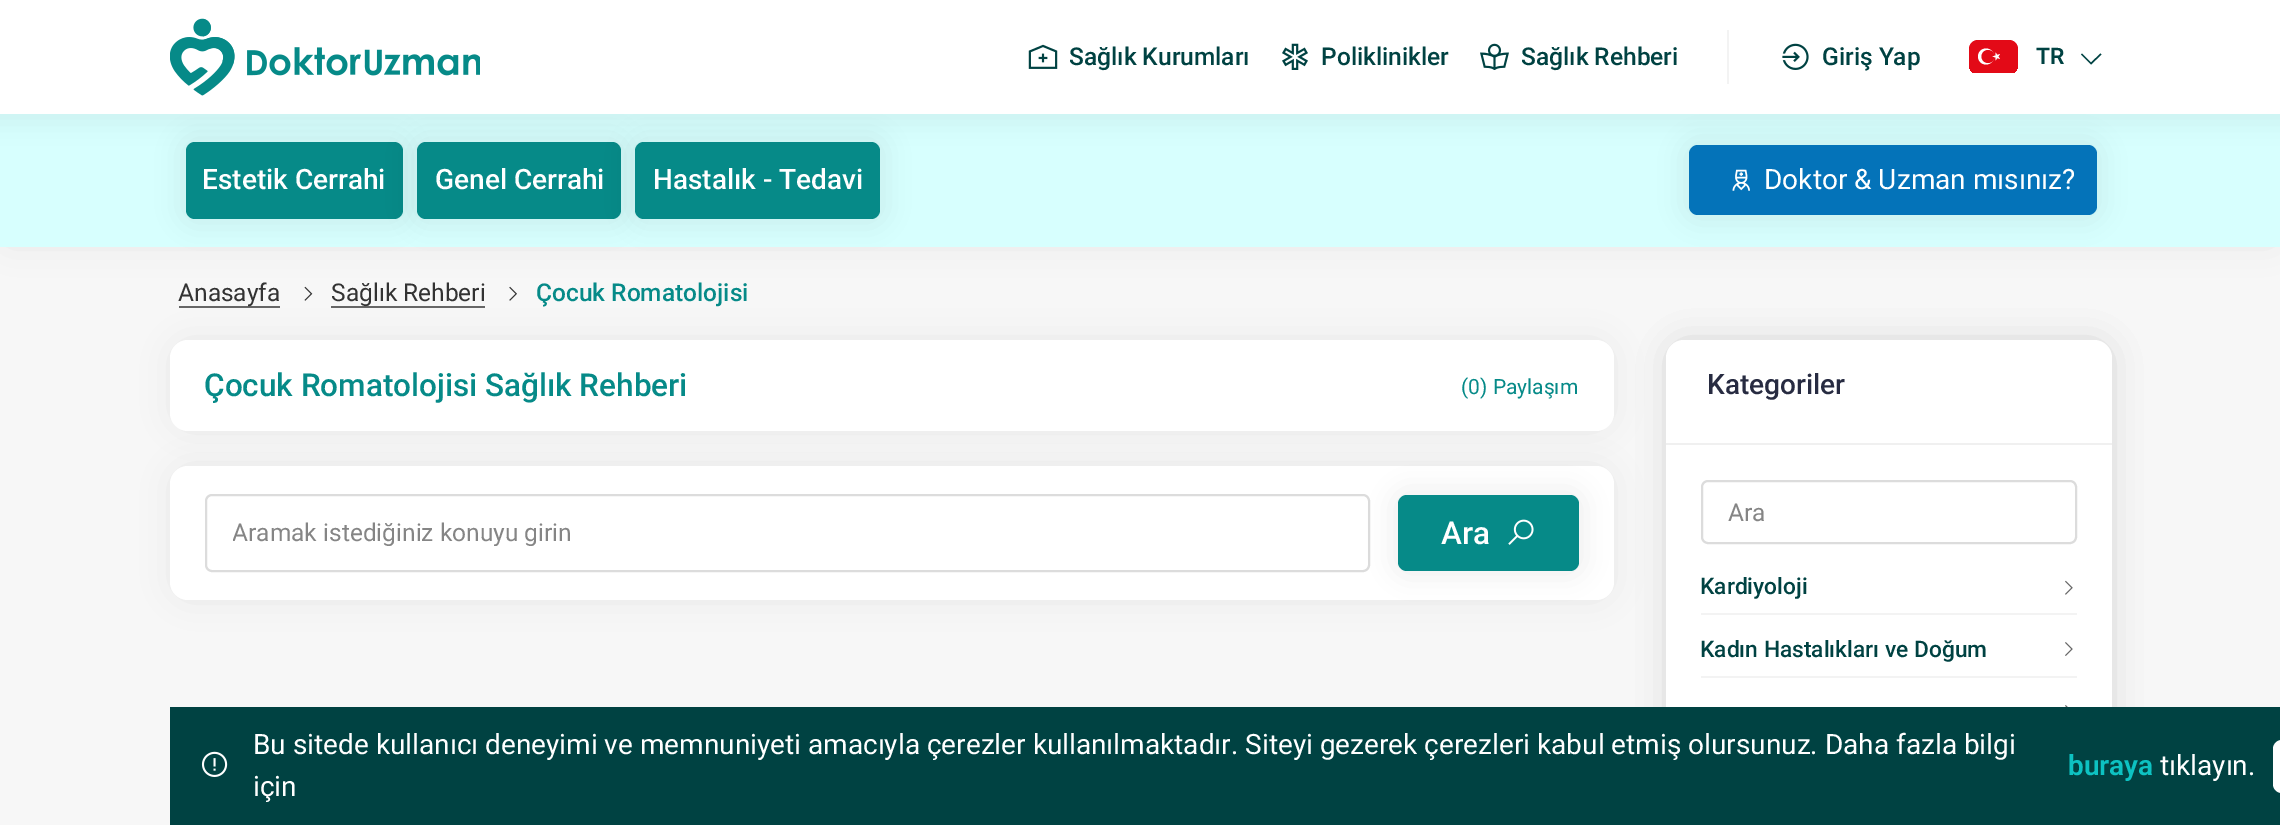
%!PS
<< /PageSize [2280 825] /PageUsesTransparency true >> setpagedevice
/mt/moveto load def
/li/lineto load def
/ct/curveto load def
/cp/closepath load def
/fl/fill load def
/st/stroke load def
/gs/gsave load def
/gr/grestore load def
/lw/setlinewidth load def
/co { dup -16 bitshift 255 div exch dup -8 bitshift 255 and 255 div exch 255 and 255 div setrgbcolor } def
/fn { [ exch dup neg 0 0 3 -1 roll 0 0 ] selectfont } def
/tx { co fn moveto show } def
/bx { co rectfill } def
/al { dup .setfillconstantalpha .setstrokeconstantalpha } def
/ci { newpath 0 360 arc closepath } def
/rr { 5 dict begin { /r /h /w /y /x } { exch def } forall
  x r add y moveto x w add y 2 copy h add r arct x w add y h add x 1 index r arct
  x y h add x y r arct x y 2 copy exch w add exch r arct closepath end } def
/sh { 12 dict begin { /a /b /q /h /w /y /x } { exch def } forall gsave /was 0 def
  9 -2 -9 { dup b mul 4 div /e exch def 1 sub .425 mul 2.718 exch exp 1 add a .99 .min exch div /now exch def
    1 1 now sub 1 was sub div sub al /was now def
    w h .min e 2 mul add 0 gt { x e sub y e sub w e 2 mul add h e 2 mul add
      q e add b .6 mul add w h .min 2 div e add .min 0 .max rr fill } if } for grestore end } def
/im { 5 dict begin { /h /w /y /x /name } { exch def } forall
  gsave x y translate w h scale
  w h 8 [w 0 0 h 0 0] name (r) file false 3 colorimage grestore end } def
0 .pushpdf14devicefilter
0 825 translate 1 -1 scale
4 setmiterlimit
0 0 2280 825 16#F7F7F7 bx
16#000000 co
9 123 2263 115 0 17.5 .1 sh
0 114 2280 133 16#D7FFFE bx
16#000000 co
177 133 234 95 18 13 .05 sh
16#068A88 co
186 142 217 77 9 rr fl
16#000000 co
408 133 222 95 18 13 .05 sh
16#068A88 co
417 142 204 77 9 rr fl
16#000000 co
627 133 262 95 18 13 .05 sh
16#068A88 co
635 142 245 77 9 rr fl
16#000000 co
1680 137 425 87 18 13 .05 sh
16#0473B9 co
1689 145 408 70 9 rr fl
16#000000 co
-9 -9 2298 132 0 13 .05 sh
0 0 2280 114 16#FFFFFF bx
(media/1.raw) 170 18 310 78 im
(media/2.raw) 1028 44 30 25 im
(media/3.raw) 1282 43 26 27 im
(media/4.raw) 1480 43 29 27 im
1727 30 2 54 16#F3F3F3 bx
(media/5.raw) 1782 43 27 27 im
gs
1969 40 49 34 9 rr clip newpath
16#E30A17 co
1978 40 mt 2009 40 li 2014 40 2018 44 2018 49 ct 2018 73 li 1969 73 li 1969 49 li 1969 44 1973 40 1978 40 ct cp fl
gr
16#FFFFFF co
1986 56.5 8 ci fl
16#E30A17 co
1988 56.5 6.5 ci fl
16#FFFFFF co
1992.5 56.5 mt 2000 59 li 1995.5 52.5 li 1995.5 60.5 li 2000 54 li cp fl
16#004242 co
2082 53.5 mt 2081 54.5 li 2091 64.5 li 2101.5 54.5 li 2100.5 53.5 li 2091 62.5 li cp fl
(media/6.raw) 1732 169 18 22 im
179 306 101 2 16#666666 bx
(media/7.raw) 304 286 9 15 im
331 306 154 2 16#666666 bx
(media/8.raw) 509 286 8 15 im
16#000000 co
179 348 1426 74 9 17.5 .1 sh
16#FFFFFF co
170 340 1444 91 18 rr fl
16#000000 co
179 474 1426 118 9 17.5 .1 sh
16#FFFFFF co
170 466 1444 134 18 rr fl
16#DCDCDC co
2 lw
206 495 1163 76 6 rr st
16#000000 co
1390 487 197 92 18 13 .05 sh
16#068A88 co
1398 495 181 76 9 rr fl
(media/9.raw) 1508 519 26 26 im
16#000000 co
1675 348 429 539 9 17.5 .1 sh
1675 348 429 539 9 17.5 .1 sh
16#FFFFFF co
1666 340 446 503 18 rr fl
1666 443 446 2 16#F0F0F0 bx
16#DCDCDC co
1702 481 374 62 6 rr st
1701 613 376 2 16#F3F3F3 bx
(media/10.raw) 2065 580 8 15 im
1701 676 376 2 16#F3F3F3 bx
(media/11.raw) 2065 642 8 14 im
(media/12.raw) 2065 705 3 2 im
170 707 2110 118 16#004242 bx
(media/13.raw) 201 751 27 26 im
16#FFFFFF co
2273 740 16 53 9 rr fl
(Sağlık Kurumları) 1069 65 /Roboto-Medium 24.5 16#004242 tx
(Poliklinikler) 1321 65 /Roboto-Medium 24.5 16#004242 tx
(Sağlık Rehberi) 1521 65 /Roboto-Medium 24.5 16#004242 tx
(Giriş Yap) 1822 65 /Roboto-Medium 24.5 16#004242 tx
(TR) 2036 64 /Roboto-SemiBold 22.75 16#004242 tx
(Estetik Cerrahi) 202 189 /Roboto-Medium 28 16#FFFFFF tx
(Genel Cerrahi) 435 189 /Roboto-Medium 28 16#FFFFFF tx
(Hastalık - Tedavi) 653 189 /Roboto-Medium 28 16#FFFFFF tx
(Doktor & Uzman mısınız?) 1764 189 /Roboto-Regular 28 16#FFFFFF tx
(Anasayfa) 178 301 /Roboto-Regular 24.5 16#333333 tx
(Sağlık Rehberi) 331 301 /Roboto-Regular 24.5 16#333333 tx
(Çocuk Romatolojisi) 536 301 /Roboto-Medium 24.5 16#068A88 tx
(Çocuk Romatolojisi Sağlık Rehberi) 204 396 /Roboto-Medium 31.5 16#068A88 tx
(\(0\) Paylaşım) 1461 394 /Roboto-Regular 21 16#068A88 tx
gs
233 518 1109 28 rectclip
(Aramak istediğiniz konuyu girin) 232 541 /Roboto-Regular 24.5 16#858585 tx
gr
(Ara) 1441 544 /Roboto-Medium 31.5 16#FFFFFF tx
(Kategoriler) 1707 394 /Roboto-Medium 28 16#272B41 tx
(Ara) 1728 521 /Roboto-Regular 24.5 16#858585 tx
(Kardiyoloji) 1700 594 /Roboto-Medium 22.75 16#004242 tx
(Kadın Hastalıkları ve Doğum) 1700 657 /Roboto-Medium 22.75 16#004242 tx
(Bu sitede kullanıcı deneyimi ve memnuniyeti amacıyla çerezler kullanılmaktadır. Siteyi gezerek çerezleri kabul etmiş olursunuz. Daha fazla bilgi) 253 754 /Roboto-Regular 28 16#FFFFFF tx
(buraya) 2068 775 /Roboto-SemiBold 28 16#0DC2C2 tx
(tıklayın.) 2160 775 /Roboto-Regular 28 16#FFFFFF tx
(için) 253 796 /Roboto-Regular 28 16#FFFFFF tx
.poppdf14devicefilter showpage
